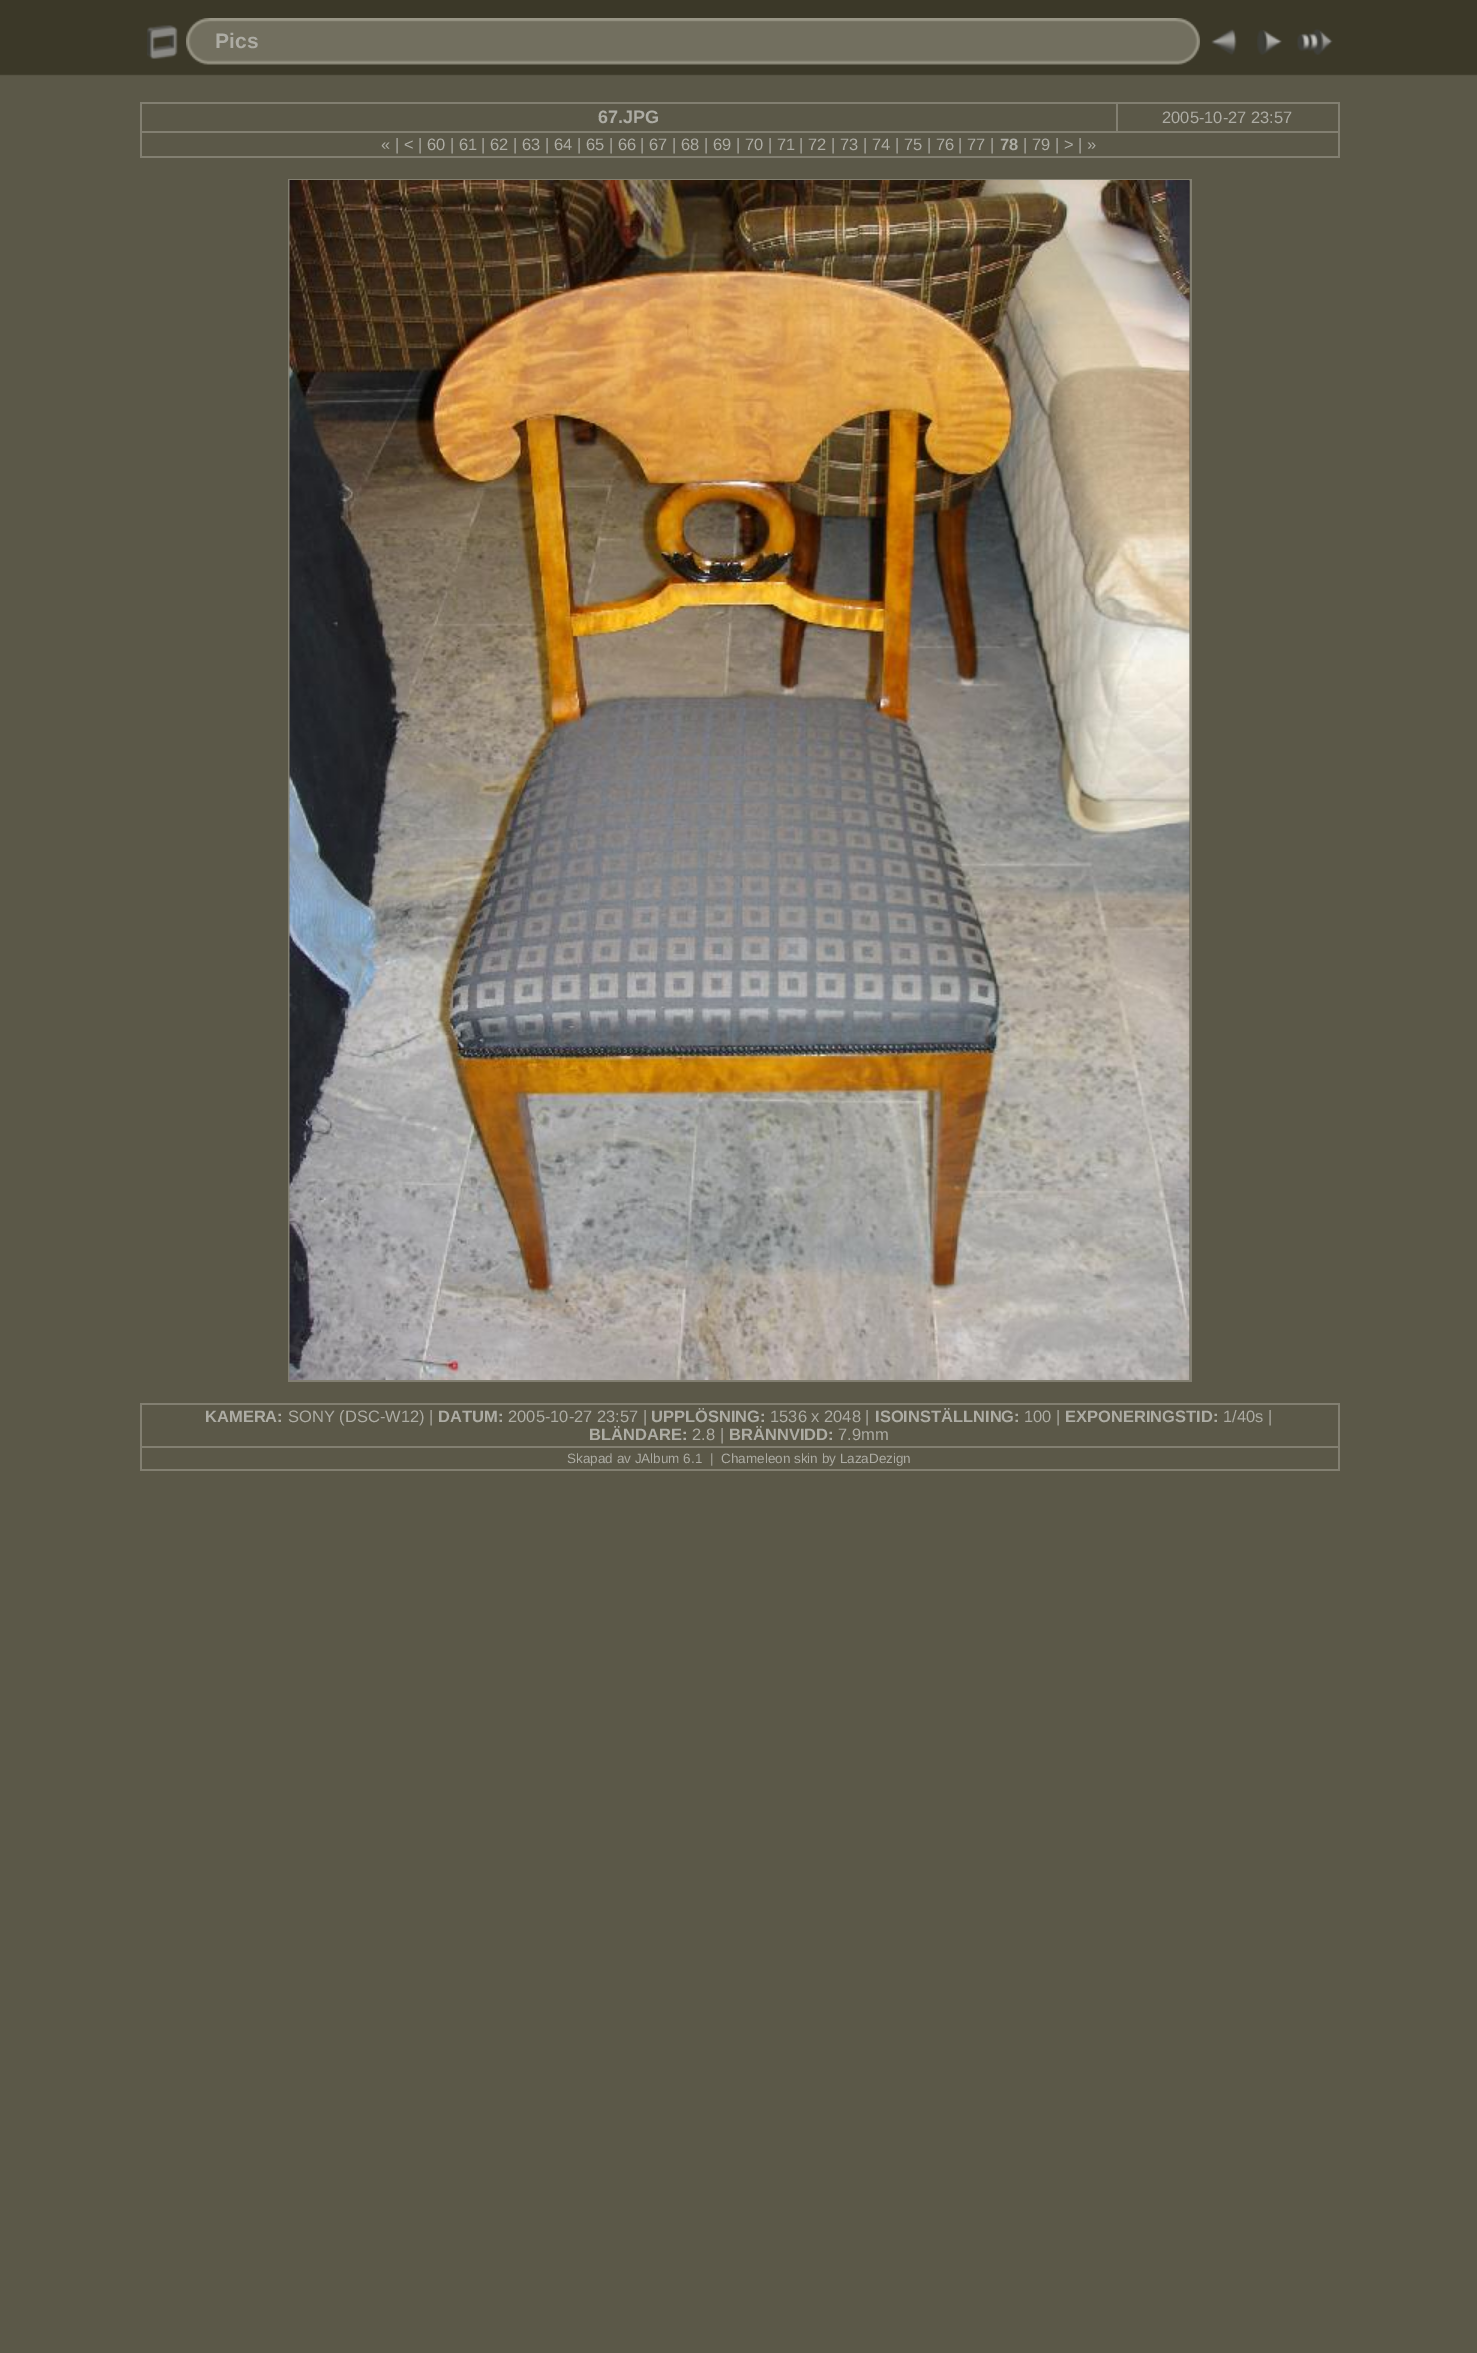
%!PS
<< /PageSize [1477 2353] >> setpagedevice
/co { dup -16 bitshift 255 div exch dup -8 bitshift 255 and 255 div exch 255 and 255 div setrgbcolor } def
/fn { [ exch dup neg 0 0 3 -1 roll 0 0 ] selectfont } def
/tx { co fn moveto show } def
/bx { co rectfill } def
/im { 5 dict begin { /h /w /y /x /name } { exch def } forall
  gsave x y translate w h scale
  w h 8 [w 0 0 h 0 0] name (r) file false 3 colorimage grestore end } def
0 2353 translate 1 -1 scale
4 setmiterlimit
0 0 1477 2353 16#5B5848 bx
(media/1.raw) 0 0 1477 76 im
(media/2.raw) 147 25 31 34 im
(media/3.raw) 186 18 30 47 im
(media/4.raw) 216 18 954 47 im
(media/5.raw) 1170 18 30 47 im
(media/6.raw) 1211 29 26 26 im
(media/7.raw) 1257 30 25 25 im
(media/8.raw) 1297 29 36 26 im
140 102 1200 2 16#827F71 bx
1338 102 2 56 16#827F71 bx
140 156 1200 2 16#827F71 bx
140 102 2 56 16#827F71 bx
140 131 1200 2 16#827F71 bx
1116 102 2 30 16#827F71 bx
288 179 903 2 16#827F71 bx
1190 179 2 1203 16#827F71 bx
288 1380 903 2 16#827F71 bx
288 179 2 1203 16#827F71 bx
(media/9.raw) 289 180 901 1200 im
140 1403 1200 2 16#827F71 bx
1338 1403 2 67 16#827F71 bx
140 1469 1200 2 16#827F71 bx
140 1403 2 67 16#827F71 bx
140 1446 1200 2 16#827F71 bx
(Pics) 215 48 /LiberationSans-Bold 21 16#ADACA4 tx
(67.JPG) 598 123 /LiberationSans-Bold 18 16#ADACA4 tx
(2005-10-27 23:57) 1162 123 /LiberationSans-Regular 16.5 16#ADACA4 tx
(« | < | 60 | 61 | 62 | 63 | 64 | 65 | 66 | 67 | 68 | 69 | 70 | 71 | 72 | 73 | 74 | 75 | 76 | 77 |) 381 150 /LiberationSans-Regular 16.5 16#ADACA4 tx
(78) 1000 150 /LiberationSans-Bold 16.5 16#ADACA4 tx
(| 79 | > | ») 1023 150 /LiberationSans-Regular 16.5 16#ADACA4 tx
(KAMERA:) 205 1422 /LiberationSans-Bold 16.5 16#ADACA4 tx
(SONY \(DSC-W12\) |) 288 1422 /LiberationSans-Regular 16.5 16#ADACA4 tx
(DATUM:) 438 1422 /LiberationSans-Bold 16.5 16#ADACA4 tx
(2005-10-27 23:57 |) 508 1422 /LiberationSans-Regular 16.5 16#ADACA4 tx
(UPPLÖSNING:) 651 1422 /LiberationSans-Bold 16.5 16#ADACA4 tx
(1536 x 2048 |) 770 1422 /LiberationSans-Regular 16.5 16#ADACA4 tx
(ISOINSTÄLLNING:) 875 1422 /LiberationSans-Bold 16.5 16#ADACA4 tx
(100 |) 1024 1422 /LiberationSans-Regular 16.5 16#ADACA4 tx
(EXPONERINGSTID:) 1065 1422 /LiberationSans-Bold 16.5 16#ADACA4 tx
(1/40s |) 1223 1422 /LiberationSans-Regular 16.5 16#ADACA4 tx
(BLÄNDARE:) 589 1440 /LiberationSans-Bold 16.5 16#ADACA4 tx
(2.8 |) 692 1440 /LiberationSans-Regular 16.5 16#ADACA4 tx
(BRÄNNVIDD:) 729 1440 /LiberationSans-Bold 16.5 16#ADACA4 tx
(7.9mm) 838 1440 /LiberationSans-Regular 16.5 16#ADACA4 tx
(Skapad av JAlbum 6.1) 567 1463 /LiberationSans-Regular 13.5 16#ADACA4 tx
(|  Chameleon skin by LazaDezign) 710 1463 /LiberationSans-Regular 13.5 16#ADACA4 tx
showpage
